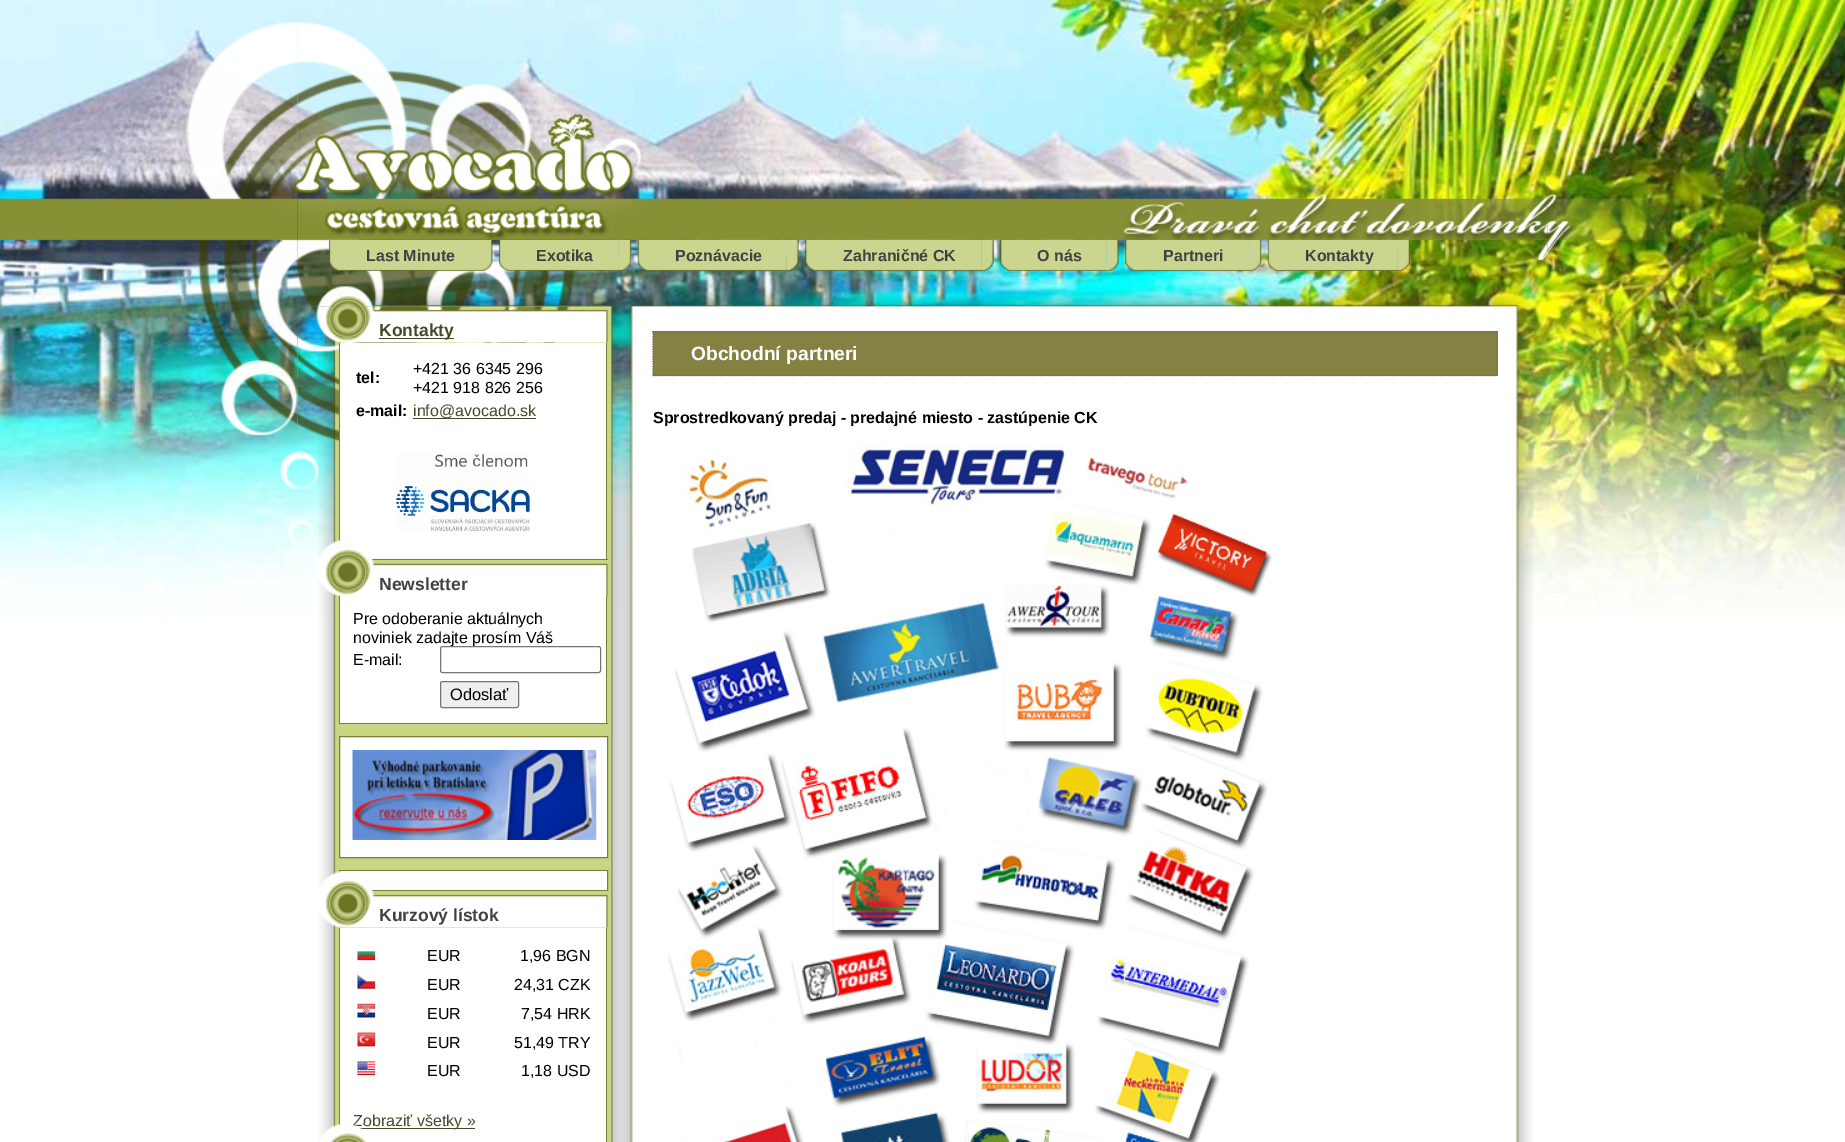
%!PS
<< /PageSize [1845 1142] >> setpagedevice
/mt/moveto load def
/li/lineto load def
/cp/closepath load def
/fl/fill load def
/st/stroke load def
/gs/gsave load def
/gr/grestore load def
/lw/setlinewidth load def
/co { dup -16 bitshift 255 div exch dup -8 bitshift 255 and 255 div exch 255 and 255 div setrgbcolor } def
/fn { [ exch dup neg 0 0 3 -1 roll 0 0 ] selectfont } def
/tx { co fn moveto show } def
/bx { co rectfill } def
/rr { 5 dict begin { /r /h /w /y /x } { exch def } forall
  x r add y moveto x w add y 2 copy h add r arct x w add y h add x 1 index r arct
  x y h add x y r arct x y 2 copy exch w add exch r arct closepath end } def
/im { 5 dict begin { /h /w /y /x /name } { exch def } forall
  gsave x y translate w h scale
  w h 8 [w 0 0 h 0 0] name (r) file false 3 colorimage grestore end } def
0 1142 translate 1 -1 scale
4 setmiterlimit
0 0 1845 1142 16#FFFFFF bx
(media/1.raw) 0 0 1845 620 im
(media/19.raw) 319 306 1214 836 im
(media/20.raw) 297 306 273 238 im
(media/21.raw) 316 306 292 37 im
(media/2.raw) 297 21 1251 286 im
(media/3.raw) 0 21 298 523 im
(media/4.raw) 480 240 13 32 im
(media/5.raw) 328 240 152 32 im
(media/6.raw) 618 240 14 32 im
(media/7.raw) 498 240 121 32 im
(media/8.raw) 786 240 13 32 im
(media/9.raw) 637 240 150 32 im
(media/10.raw) 981 240 13 32 im
(media/11.raw) 805 240 177 32 im
(media/12.raw) 1106 240 13 32 im
(media/13.raw) 1000 240 107 32 im
(media/14.raw) 1248 240 14 32 im
(media/15.raw) 1125 240 124 32 im
(media/16.raw) 1397 240 13 32 im
(media/17.raw) 1267 240 131 32 im
(media/18.raw) 1547 193 157 70 im
379 338 75 1 16#424B28 bx
340 343 266 216 16#FFFFFF bx
606 343 1 217 16#797D38 bx
371 559 237 1 16#797D38 bx
339 343 1 204 16#797D38 bx
413 418 123 1 16#424B28 bx
(media/22.raw) 396 453 134 78 im
(media/23.raw) 317 540 291 57 im
340 596 266 127 16#FFFFFF bx
606 596 1 128 16#797D38 bx
339 723 269 1 16#797D38 bx
339 596 1 128 16#797D38 bx
16#EFEFEF co
440.5 681.5 78 26 2 rr gs fl gr
16#767676 co
st
16#FFFFFF co
339.5 736.5 mt 607.5 736.5 li 607.5 857.5 li 339.5 857.5 li cp gs fl gr
16#797D38 co
st
(media/24.raw) 352 750 245 90 im
16#FFFFFF co
339.5 870.5 mt 607.5 870.5 li 607.5 890.5 li 339.5 890.5 li cp gs fl gr
16#797D38 co
st
(media/25.raw) 318 871 290 57 im
340 928 266 214 16#FFFFFF bx
606 928 1 214 16#797D38 bx
339 928 1 203 16#797D38 bx
(media/26.raw) 357 951 19 10 im
(media/27.raw) 357 974 19 15 im
(media/28.raw) 357 1003 19 15 im
(media/29.raw) 357 1032 19 15 im
(media/30.raw) 357 1061 19 15 im
353 1128 122 1 16#424B28 bx
653 331 845 45 16#858142 bx
16#746F41 co
1.2 lw
[1.25 1.25] 0 setdash
652.5 332 mt 1497.5 332 li st
1497 331 mt 1497 376 li st
652.5 375.5 mt 1497.5 375.5 li st
653 331 mt 653 376 li st
(Last Minute) 366 261 /LiberationSans-Bold 16 16#414141 tx
(Exotika) 536 261 /LiberationSans-Bold 16 16#414141 tx
(Poznávacie) 675 261 /LiberationSans-Bold 16 16#414141 tx
(Zahraničné CK) 843 261 /LiberationSans-Bold 16 16#414141 tx
(O nás) 1037 261 /LiberationSans-Bold 16 16#414141 tx
(Partneri) 1163 261 /LiberationSans-Bold 16 16#414141 tx
(Kontakty) 1305 261 /LiberationSans-Bold 16 16#414141 tx
(Kontakty) 379 336 /LiberationSans-Bold 17.5 16#424B28 tx
(tel:) 356 383 /LiberationSans-Bold 16 16#000000 tx
(+421 36 6345 296) 413 374 /LiberationSans-Regular 16 16#000000 tx
(+421 918 826 256) 413 393 /LiberationSans-Regular 16 16#000000 tx
(e-mail:) 356 416 /LiberationSans-Bold 16 16#000000 tx
(info@avocado.sk) 413 416 /LiberationSans-Regular 16 16#424B28 tx
(Newsletter) 379 590 /LiberationSans-Bold 17.5 16#414141 tx
(Pre odoberanie aktuálnych) 353 624 /LiberationSans-Regular 16 16#000000 tx
(noviniek zadajte prosím Váš) 353 643 /LiberationSans-Regular 16 16#000000 tx
(E-mail:) 353 665 /LiberationSans-Regular 16 16#000000 tx
16#FFFFFF co
440.5 646.5 160 26 2 rr gs fl gr
16#767676 co
1 lw
[] 0 setdash
st
(Odoslať) 450 700 /LiberationSans-Regular 16.5 16#000000 tx
(Kurzový lístok) 379 921 /LiberationSans-Bold 17.5 16#414141 tx
(EUR) 427 961 /LiberationSans-Regular 16 16#000000 tx
(1,96 BGN) 520 961 /LiberationSans-Regular 16 16#000000 tx
(EUR) 427 990 /LiberationSans-Regular 16 16#000000 tx
(24,31 CZK) 514 990 /LiberationSans-Regular 16 16#000000 tx
(EUR) 427 1019 /LiberationSans-Regular 16 16#000000 tx
(7,54 HRK) 521 1019 /LiberationSans-Regular 16 16#000000 tx
(EUR) 427 1048 /LiberationSans-Regular 16 16#000000 tx
(51,49 TRY) 514 1048 /LiberationSans-Regular 16 16#000000 tx
(EUR) 427 1076 /LiberationSans-Regular 16 16#000000 tx
(1,18 USD) 521 1076 /LiberationSans-Regular 16 16#000000 tx
(Zobraziť všetky ») 353 1126 /LiberationSans-Regular 16 16#424B28 tx
(media/31.raw) 319 1123 48 19 im
(Obchodní partneri) 691 360 /LiberationSans-Bold 19.25 16#FFFFFF tx
(Sprostredkovaný predaj - predajné miesto - zastúpenie CK) 653 423 /LiberationSans-Bold 16 16#000000 tx
(media/32.raw) 664 426 609 716 im
showpage
